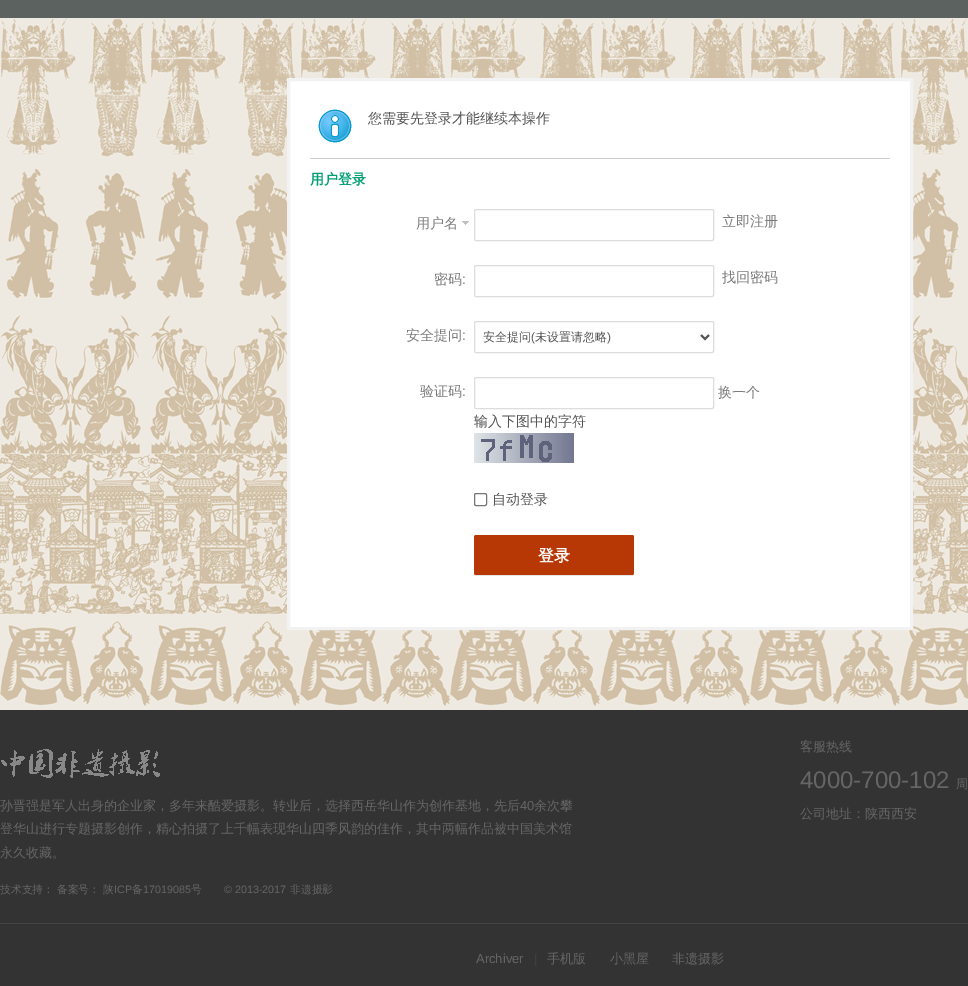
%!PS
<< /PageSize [968 986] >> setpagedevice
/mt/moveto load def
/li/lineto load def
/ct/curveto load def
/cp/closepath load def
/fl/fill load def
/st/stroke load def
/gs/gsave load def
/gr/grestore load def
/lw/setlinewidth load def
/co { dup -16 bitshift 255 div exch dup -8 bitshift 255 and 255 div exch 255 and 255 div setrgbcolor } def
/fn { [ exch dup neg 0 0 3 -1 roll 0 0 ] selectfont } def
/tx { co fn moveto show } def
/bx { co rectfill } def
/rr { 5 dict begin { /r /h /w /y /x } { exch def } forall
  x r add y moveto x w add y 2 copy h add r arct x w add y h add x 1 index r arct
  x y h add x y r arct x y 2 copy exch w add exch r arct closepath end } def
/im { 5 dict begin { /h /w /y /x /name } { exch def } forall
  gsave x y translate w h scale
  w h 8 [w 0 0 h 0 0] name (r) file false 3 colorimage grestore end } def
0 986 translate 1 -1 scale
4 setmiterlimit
0 0 968 986 16#FFFFFF bx
(media/1.raw) 0 18 968 692 im
0 0 968 18 16#5C6260 bx
16#FFFFFF co
288.5 79.5 mt 911.5 79.5 li 911.5 628.5 li 288.5 628.5 li cp gs fl gr
16#F2F2F2 co
3 lw
st
(media/2.raw) 318 109 34 34 im
310 158 580 1 16#CDCDCD bx
(media/3.raw) 462 221 7 4 im
16#DDDDDD co
1 lw
474.5 209.5 239 31 1.5 rr st
474.5 265.5 239 31 1.5 rr st
474.5 321.5 239 31 1.5 rr st
16#555555 co
2 lw
701 335 mt 705 339 li 709 335 li st
16#DDDDDD co
1 lw
474.5 377.5 239 31 1.5 rr st
(media/4.raw) 474 433 100 30 im
16#767676 co
474.5 493.5 12 12 1.5 rr st
16#E5E5E5 co
474 573 mt 474 574 474 576 476 576 ct 632 576 li 634 576 634 574 634 573 ct 634 574 633 575 632 575 ct 476 575 li 475 575 474 574 474 573 ct cp fl
16#B83805 co
474 535 160 40 2 rr fl
0 710 968 276 16#333333 bx
(media/5.raw) 1 749 159 29 im
0 923 968 1 16#444444 bx
(您需要先登录才能继续本操作) 368 123 /WenQuanYiZenHei-Medium 14 16#555555 tx
(用户登录) 310 184 /WenQuanYiZenHei-Bold 14 16#009E73 tx
(用户名) 416 228 /WenQuanYiZenHei-Medium 14 16#7B7B7B tx
(立即注册) 722 226 /WenQuanYiZenHei-Medium 14 16#7B7B7B tx
(密码) 434 284 /WenQuanYiZenHei-Medium 14 16#7B7B7B tx
(:) 462 284 /LiberationSans-Regular 14 16#7B7B7B tx
(找回密码) 722 282 /WenQuanYiZenHei-Medium 14 16#7B7B7B tx
(安全提问) 406 340 /WenQuanYiZenHei-Medium 14 16#7B7B7B tx
(:) 462 340 /LiberationSans-Regular 14 16#7B7B7B tx
(安全提问) 483 341 /WenQuanYiZenHei-Medium 12 16#555555 tx
(\() 531 341 /LiberationSans-Regular 12 16#555555 tx
(未设置请忽略) 535 341 /WenQuanYiZenHei-Medium 12 16#555555 tx
(\)) 607 341 /LiberationSans-Regular 12 16#555555 tx
(验证码) 420 396 /WenQuanYiZenHei-Medium 14 16#7B7B7B tx
(:) 462 396 /LiberationSans-Regular 14 16#7B7B7B tx
(换一个) 718 397 /WenQuanYiZenHei-Medium 14 16#7B7B7B tx
(输入下图中的字符) 474 426 /WenQuanYiZenHei-Medium 14 16#555555 tx
(自动登录) 492 504 /WenQuanYiZenHei-Medium 14 16#555555 tx
(登录) 538 561 /WenQuanYiZenHei-Bold 16 16#FFFFFF tx
(客服热线) 800 751 /WenQuanYiZenHei-Medium 13 16#666666 tx
(4000-700-102) 800 788 /LiberationSans-Regular 24 16#666666 tx
(周) 956 788 /WenQuanYiZenHei-Medium 12 16#666666 tx
(公司地址：陕西西安) 800 818 /WenQuanYiZenHei-Medium 13 16#666666 tx
(孙晋强是军人出身的企业家，多年来酷爱摄影。转业后，选择西岳华山作为创作基地，先后) 0 810 /WenQuanYiZenHei-Medium 13 16#666666 tx
(40) 520 810 /LiberationSans-Regular 13 16#666666 tx
(余次攀) 534 810 /WenQuanYiZenHei-Medium 13 16#666666 tx
(登华山进行专题摄影创作，精心拍摄了上千幅表现华山四季风韵的佳作，其中两幅作品被中国美术馆) 0 833 /WenQuanYiZenHei-Medium 13 16#666666 tx
(永久收藏。) 0 857 /WenQuanYiZenHei-Medium 13 16#666666 tx
(技术支持： 备案号： 陕) 0 893 /WenQuanYiZenHei-Medium 10.75 16#666666 tx
(ICP) 114 893 /LiberationSans-Regular 10.75 16#666666 tx
(备) 132 893 /WenQuanYiZenHei-Medium 10.75 16#666666 tx
(17019085) 143 893 /LiberationSans-Regular 10.75 16#666666 tx
(号) 191 893 /WenQuanYiZenHei-Medium 10.75 16#666666 tx
(© 2013-2017) 224 893 /LiberationSans-Regular 10.75 16#666666 tx
(非遗摄影) 290 893 /WenQuanYiZenHei-Medium 10.75 16#666666 tx
(Archiver) 476 963 /LiberationSans-Regular 13 16#666666 tx
(|) 534 963 /LiberationSans-Regular 13 16#444444 tx
(手机版) 547 963 /WenQuanYiZenHei-Medium 13 16#666666 tx
(小黑屋) 610 963 /WenQuanYiZenHei-Medium 13 16#666666 tx
(非遗摄影) 672 963 /WenQuanYiZenHei-Medium 13 16#666666 tx
showpage
